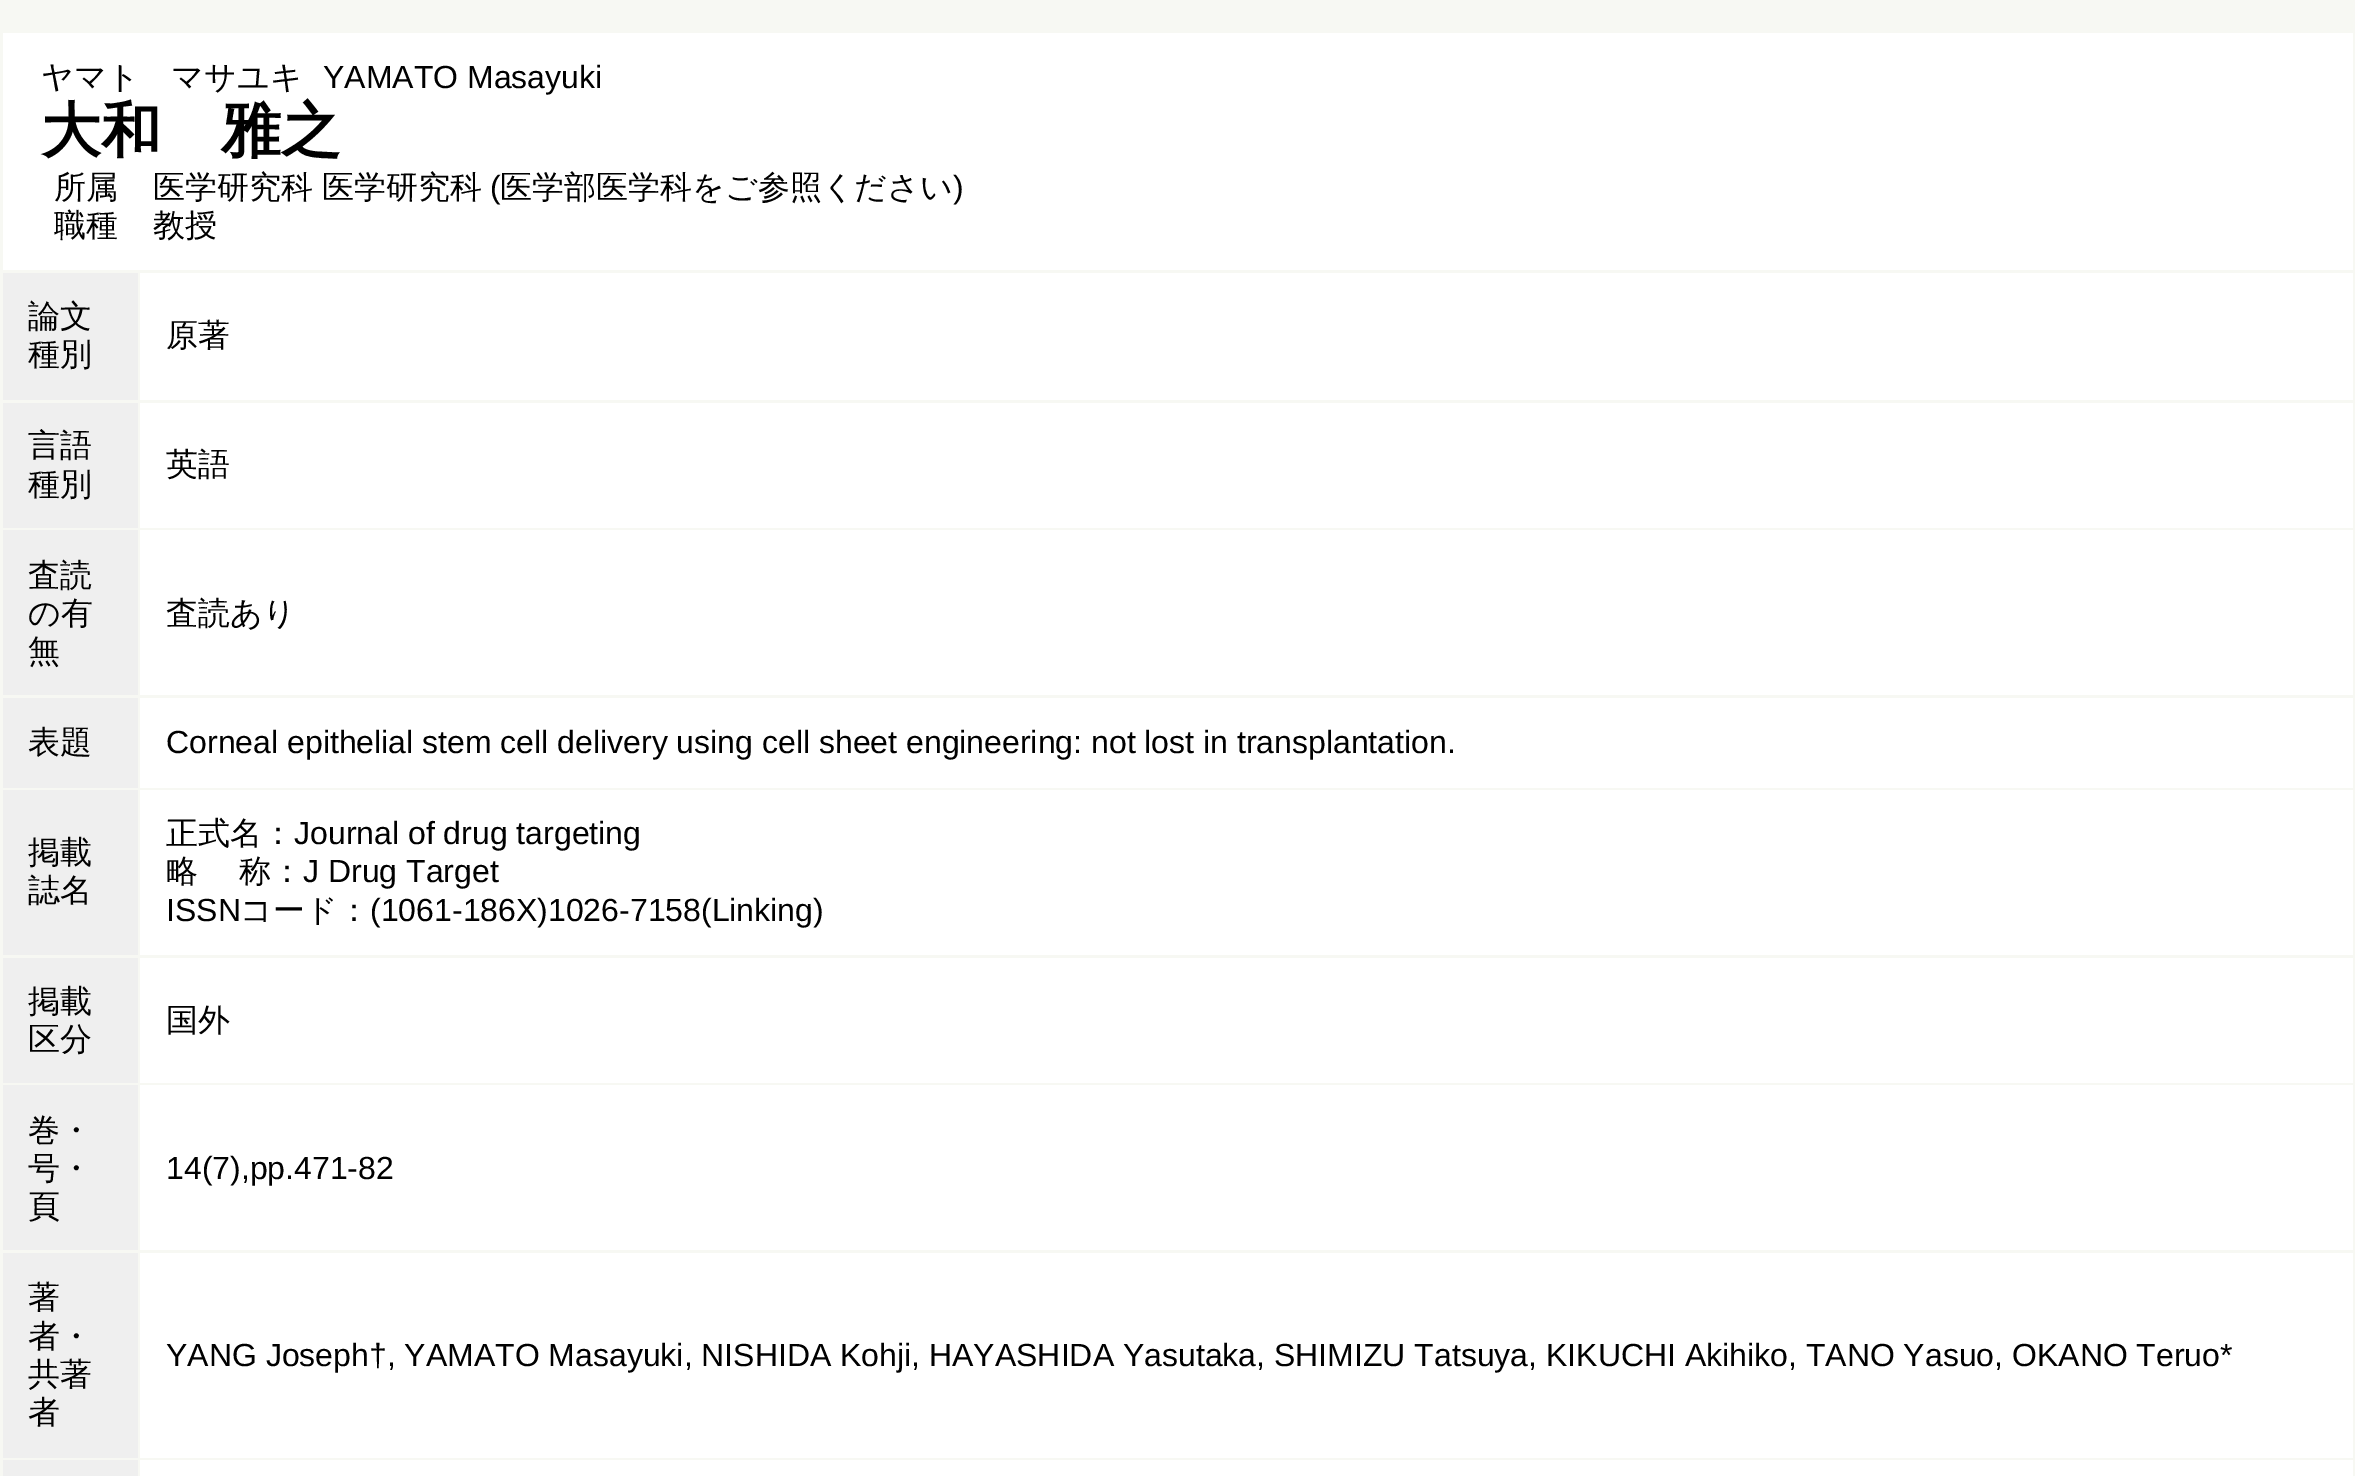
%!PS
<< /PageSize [2355 1476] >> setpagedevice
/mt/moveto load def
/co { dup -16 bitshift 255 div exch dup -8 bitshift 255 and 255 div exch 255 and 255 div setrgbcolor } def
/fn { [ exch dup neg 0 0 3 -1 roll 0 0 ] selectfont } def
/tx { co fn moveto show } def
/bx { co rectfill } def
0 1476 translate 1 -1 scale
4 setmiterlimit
0 0 2355 1476 16#F7F8F3 bx
3 33 2350 237 16#FFFFFF bx
3 273 135 127 16#EFEFEF bx
140 273 2213 127 16#FFFFFF bx
3 403 135 125 16#EFEFEF bx
140 403 2213 125 16#FFFFFF bx
3 530 135 165 16#EFEFEF bx
140 530 2213 165 16#FFFFFF bx
3 698 135 90 16#EFEFEF bx
140 698 2213 90 16#FFFFFF bx
3 790 135 165 16#EFEFEF bx
140 790 2213 165 16#FFFFFF bx
3 958 135 125 16#EFEFEF bx
140 958 2213 125 16#FFFFFF bx
3 1085 135 165 16#EFEFEF bx
140 1085 2213 165 16#FFFFFF bx
3 1253 135 205 16#EFEFEF bx
140 1253 2213 205 16#FFFFFF bx
3 1460 135 16 16#EFEFEF bx
140 1460 2213 16 16#FFFFFF bx
(ヤマト　マサユキ) 41 88 /WenQuanYiZenHei-Medium 32 16#000000 tx
(YAMATO Masayuki) 323 88 /LiberationSans-Regular 32 16#000000 tx
(大和　雅之) 41 151 /WenQuanYiZenHei-Bold 60 16#000000 tx
(所属) 54 198 /WenQuanYiZenHei-Medium 32 16#000000 tx
153 198 mt -1 0 32 (医学研究科 医学研究科) widthshow
(\() 490 198 /LiberationSans-Regular 32 16#000000 tx
(医学部医学科をご参照ください) 500 198 /WenQuanYiZenHei-Medium 32 16#000000 tx
(\)) 953 198 /LiberationSans-Regular 32 16#000000 tx
(職種) 54 236 /WenQuanYiZenHei-Medium 32 16#000000 tx
(教授) 153 236 /WenQuanYiZenHei-Medium 32 16#000000 tx
(論文) 28 327 /WenQuanYiZenHei-Medium 32 16#000000 tx
(種別) 28 365 /WenQuanYiZenHei-Medium 32 16#000000 tx
(原著) 166 346 /WenQuanYiZenHei-Medium 32 16#000000 tx
(言語) 28 456 /WenQuanYiZenHei-Medium 32 16#000000 tx
(種別) 28 495 /WenQuanYiZenHei-Medium 32 16#000000 tx
(英語) 166 475 /WenQuanYiZenHei-Medium 32 16#000000 tx
(査読) 28 586 /WenQuanYiZenHei-Medium 32 16#000000 tx
(の有) 28 624 /WenQuanYiZenHei-Medium 32 16#000000 tx
(無) 28 662 /WenQuanYiZenHei-Medium 32 16#000000 tx
(査読あり) 166 624 /WenQuanYiZenHei-Medium 32 16#000000 tx
(表題) 28 753 /WenQuanYiZenHei-Medium 32 16#000000 tx
(Corneal epithelial stem cell delivery using cell sheet engineering: not lost in transplantation.) 166 753 /LiberationSans-Regular 32 16#000000 tx
(掲載) 28 863 /WenQuanYiZenHei-Medium 32 16#000000 tx
(誌名) 28 901 /WenQuanYiZenHei-Medium 32 16#000000 tx
(正式名：) 166 844 /WenQuanYiZenHei-Medium 32 16#000000 tx
(Journal of drug targeting) 294 844 /LiberationSans-Regular 32 16#000000 tx
(略) 166 882 /WenQuanYiZenHei-Medium 32 16#000000 tx
(称：) 239 882 /WenQuanYiZenHei-Medium 32 16#000000 tx
(J Drug Target) 303 882 /LiberationSans-Regular 32 16#000000 tx
(ISSN) 166 921 /LiberationSans-Regular 32 16#000000 tx
(コード：) 240 921 /WenQuanYiZenHei-Medium 32 16#000000 tx
(\(1061-186X\)1026-7158\(Linking\)) 370 921 /LiberationSans-Regular 32 16#000000 tx
(掲載) 28 1012 /WenQuanYiZenHei-Medium 32 16#000000 tx
(区分) 28 1050 /WenQuanYiZenHei-Medium 32 16#000000 tx
(国外) 166 1031 /WenQuanYiZenHei-Medium 32 16#000000 tx
(巻・) 28 1141 /WenQuanYiZenHei-Medium 32 16#000000 tx
(号・) 28 1179 /WenQuanYiZenHei-Medium 32 16#000000 tx
(頁) 28 1217 /WenQuanYiZenHei-Medium 32 16#000000 tx
(14\(7\),pp.471-82) 166 1179 /LiberationSans-Regular 32 16#000000 tx
(著) 28 1308 /WenQuanYiZenHei-Medium 32 16#000000 tx
(者・) 28 1347 /WenQuanYiZenHei-Medium 32 16#000000 tx
(共著) 28 1385 /WenQuanYiZenHei-Medium 32 16#000000 tx
(者) 28 1423 /WenQuanYiZenHei-Medium 32 16#000000 tx
(YANG Joseph†, YAMATO Masayuki, NISHIDA Kohji, HAYASHIDA Yasutaka, SHIMIZU Tatsuya, KIKUCHI Akihiko, TANO Yasuo, OKANO Teruo*) 166 1366 /LiberationSans-Regular 32 16#000000 tx
showpage
